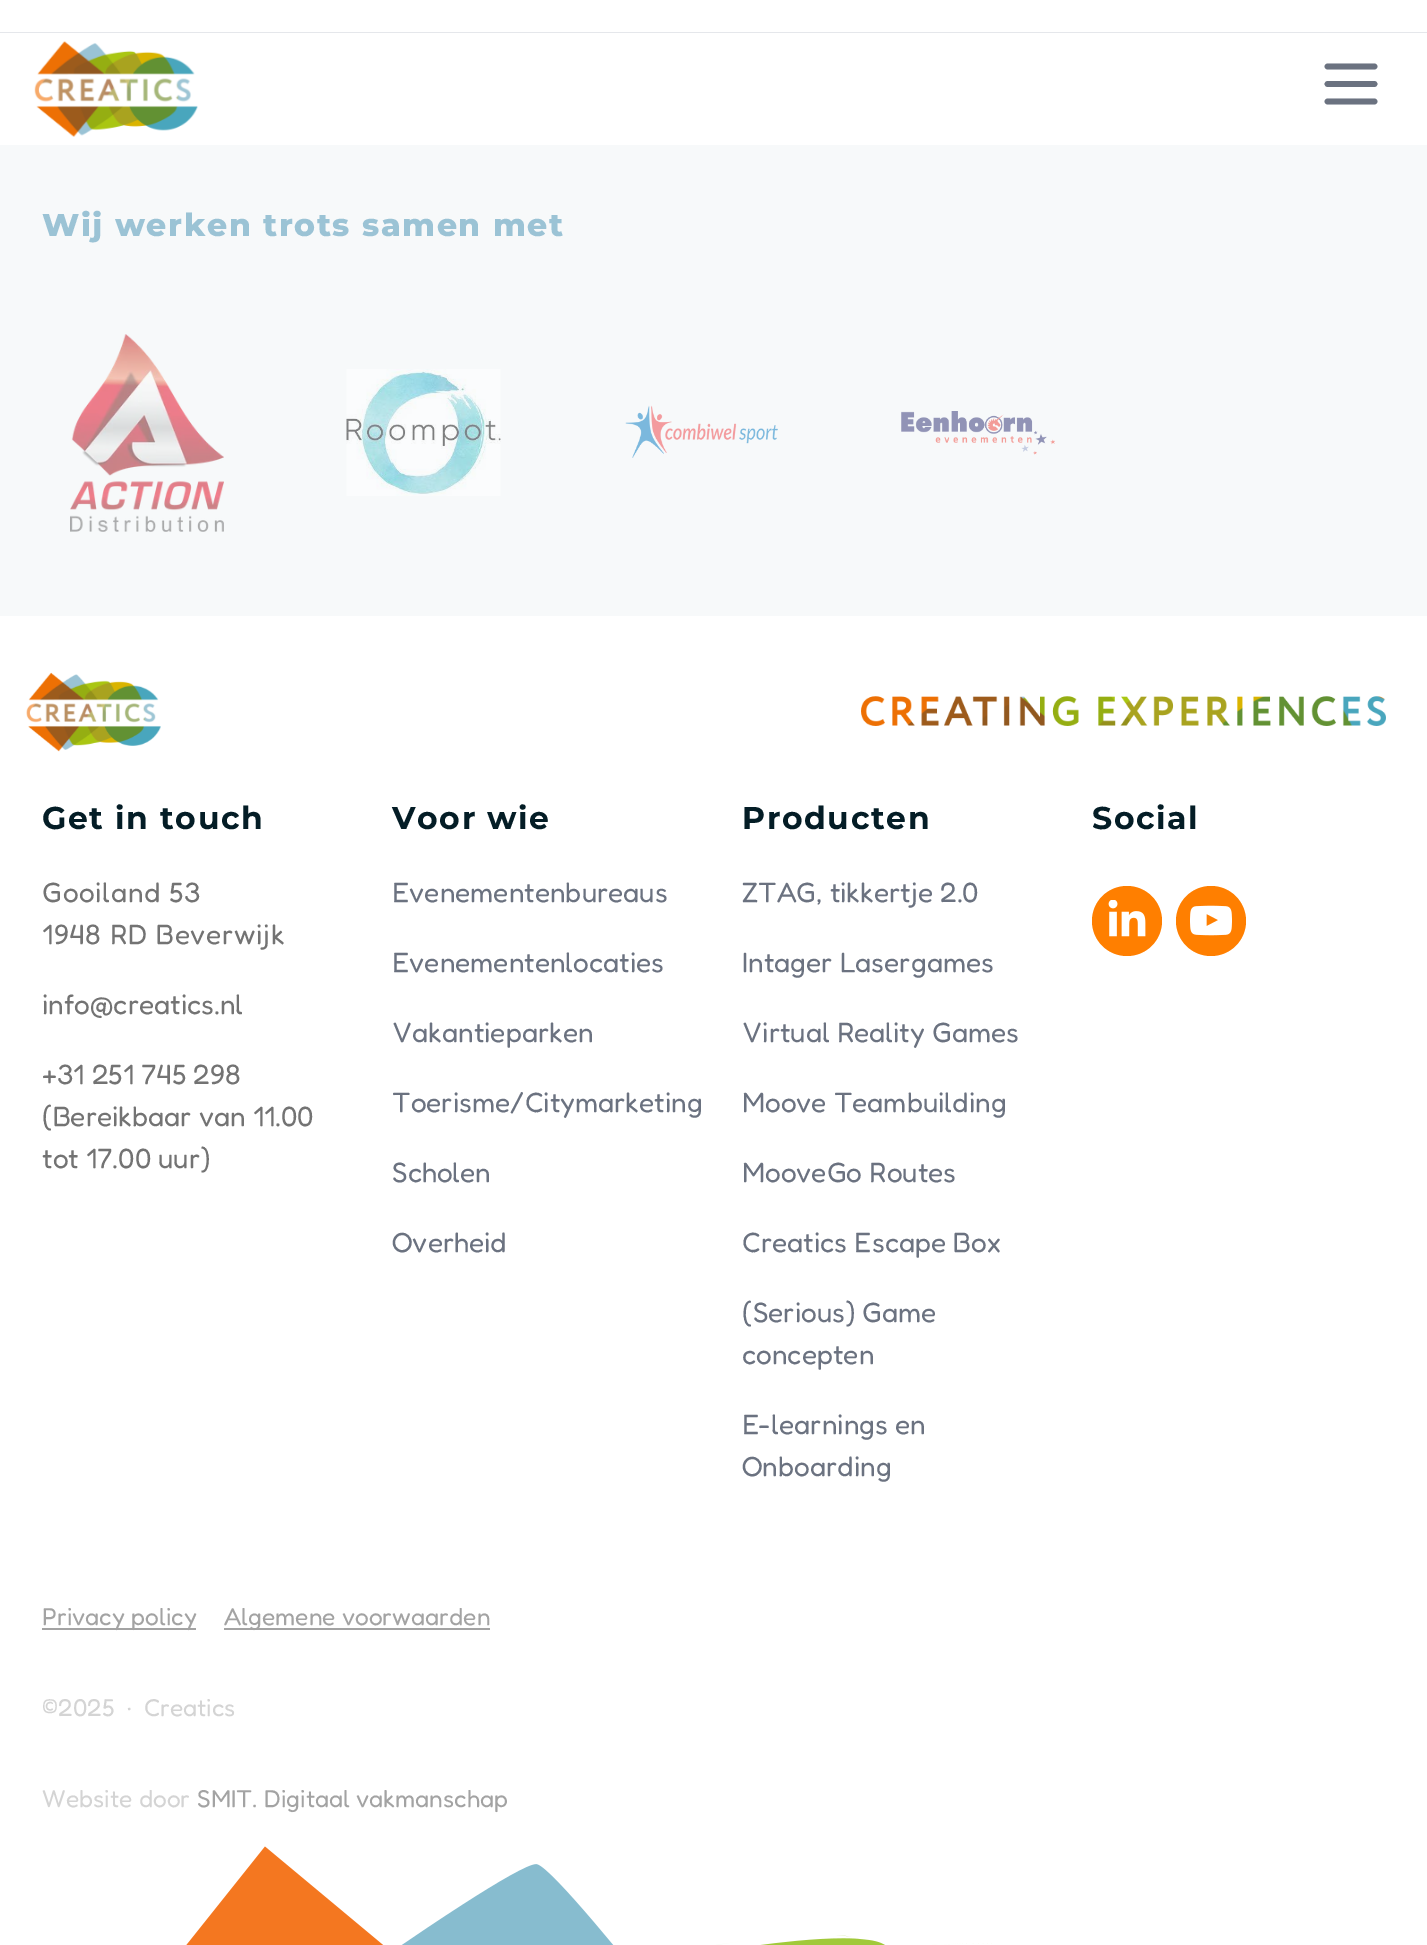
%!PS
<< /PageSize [1427 1945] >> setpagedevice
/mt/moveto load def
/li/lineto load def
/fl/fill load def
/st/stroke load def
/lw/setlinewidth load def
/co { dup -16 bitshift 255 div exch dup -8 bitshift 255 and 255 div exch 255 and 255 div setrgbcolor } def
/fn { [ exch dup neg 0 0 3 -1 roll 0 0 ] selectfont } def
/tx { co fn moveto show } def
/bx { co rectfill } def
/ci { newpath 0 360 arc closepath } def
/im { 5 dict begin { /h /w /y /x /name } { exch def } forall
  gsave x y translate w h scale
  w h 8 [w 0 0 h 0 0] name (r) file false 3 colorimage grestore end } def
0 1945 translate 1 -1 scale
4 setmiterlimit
0 0 1427 1945 16#FFFFFF bx
0 32 1427 1 16#E5E7EB bx
(media/1.raw) 34 41 164 96 im
16#6B7280 co
5.8 lw
1 setlinecap
1 setlinejoin
1327.5 66.5 mt 1374.5 66.5 li 1327.5 84 mt 1374.5 84 li 1327.5 101.5 mt 1374.5 101.5 li st
0 145 1427 471 16#F7F9FA bx
(media/2.raw) 70 334 154 198 im
(media/3.raw) 346 369 155 127 im
(media/4.raw) 625 405 153 53 im
(media/5.raw) 901 411 154 44 im
(media/6.raw) 26 672 135 80 im
(media/7.raw) 861 696 525 30 im
16#FF7F00 co
1127 921 35 ci fl
(media/8.raw) 1108 900 38 37 im
1211 921 35 ci fl
(media/9.raw) 1190 905 42 31 im
42 1628 154 2 16#A3A3A3 bx
224 1628 266 2 16#A3A3A3 bx
(media/10.raw) 186 1846 806 99 im
/Montserrat-ExtraBold 31.5 fn
16#9BC3D5 co
42 236 mt 1.6 0 (Wij werken trots samen met) ashow
/Montserrat-Bold 31.5 fn
16#041D26 co
42 829 mt 1.6 0 (Get in touch) ashow
/Fredoka-Light 28 fn
16#737373 co
42 902 mt .75 0 (Gooiland 53) ashow
42 944 mt .75 0 (1948 RD Beverwijk) ashow
(info@creatics.nl) 42 1014 /Fredoka-Light 28 16#737373 tx
(+31 251 745 298) 42 1084 /Fredoka-Light 28 16#737373 tx
(\(Bereikbaar van 11.00) 42 1126 /Fredoka-Light 28 16#737373 tx
(tot 17.00 uur\)) 42 1168 /Fredoka-Light 28 16#737373 tx
/Montserrat-Bold 31.5 fn
16#041D26 co
392 829 mt 1.6 0 (Voor wie) ashow
(Evenementenbureaus) 392 902 /Fredoka-Light 28 16#6B7280 tx
(Evenementenlocaties) 392 972 /Fredoka-Light 28 16#6B7280 tx
(Vakantieparken) 392 1042 /Fredoka-Light 28 16#6B7280 tx
(Toerisme/Citymarketing) 392 1112 /Fredoka-Light 28 16#6B7280 tx
(Scholen) 392 1182 /Fredoka-Light 28 16#6B7280 tx
(Overheid) 392 1252 /Fredoka-Light 28 16#6B7280 tx
/Montserrat-Bold 31.5 fn
16#041D26 co
742 829 mt 1.6 0 (Producten) ashow
(ZTAG, tikkertje 2.0) 742 902 /Fredoka-Light 28 16#6B7280 tx
(Intager Lasergames) 742 972 /Fredoka-Light 28 16#6B7280 tx
(Virtual Reality Games) 742 1042 /Fredoka-Light 28 16#6B7280 tx
(Moove Teambuilding) 742 1112 /Fredoka-Light 28 16#6B7280 tx
(MooveGo Routes) 742 1182 /Fredoka-Light 28 16#6B7280 tx
(Creatics Escape Box) 742 1252 /Fredoka-Light 28 16#6B7280 tx
(\(Serious\) Game) 742 1322 /Fredoka-Light 28 16#6B7280 tx
(concepten) 742 1364 /Fredoka-Light 28 16#6B7280 tx
(E-learnings en) 742 1434 /Fredoka-Light 28 16#6B7280 tx
(Onboarding) 742 1476 /Fredoka-Light 28 16#6B7280 tx
/Montserrat-Bold 31.5 fn
16#041D26 co
1092 829 mt 1.6 0 (Social) ashow
(Privacy policy) 42 1625 /Fredoka-Light 24.5 16#A3A3A3 tx
(Algemene voorwaarden) 224 1625 /Fredoka-Light 24.5 16#A3A3A3 tx
(©2025  ·  Creatics) 42 1716 /Fredoka-Light 24.5 16#D4D4D4 tx
(Website door) 42 1807 /Fredoka-Light 24.5 16#D4D4D4 tx
(SMIT. Digitaal vakmanschap) 197 1807 /Fredoka-Light 24.5 16#A3A3A3 tx
showpage
